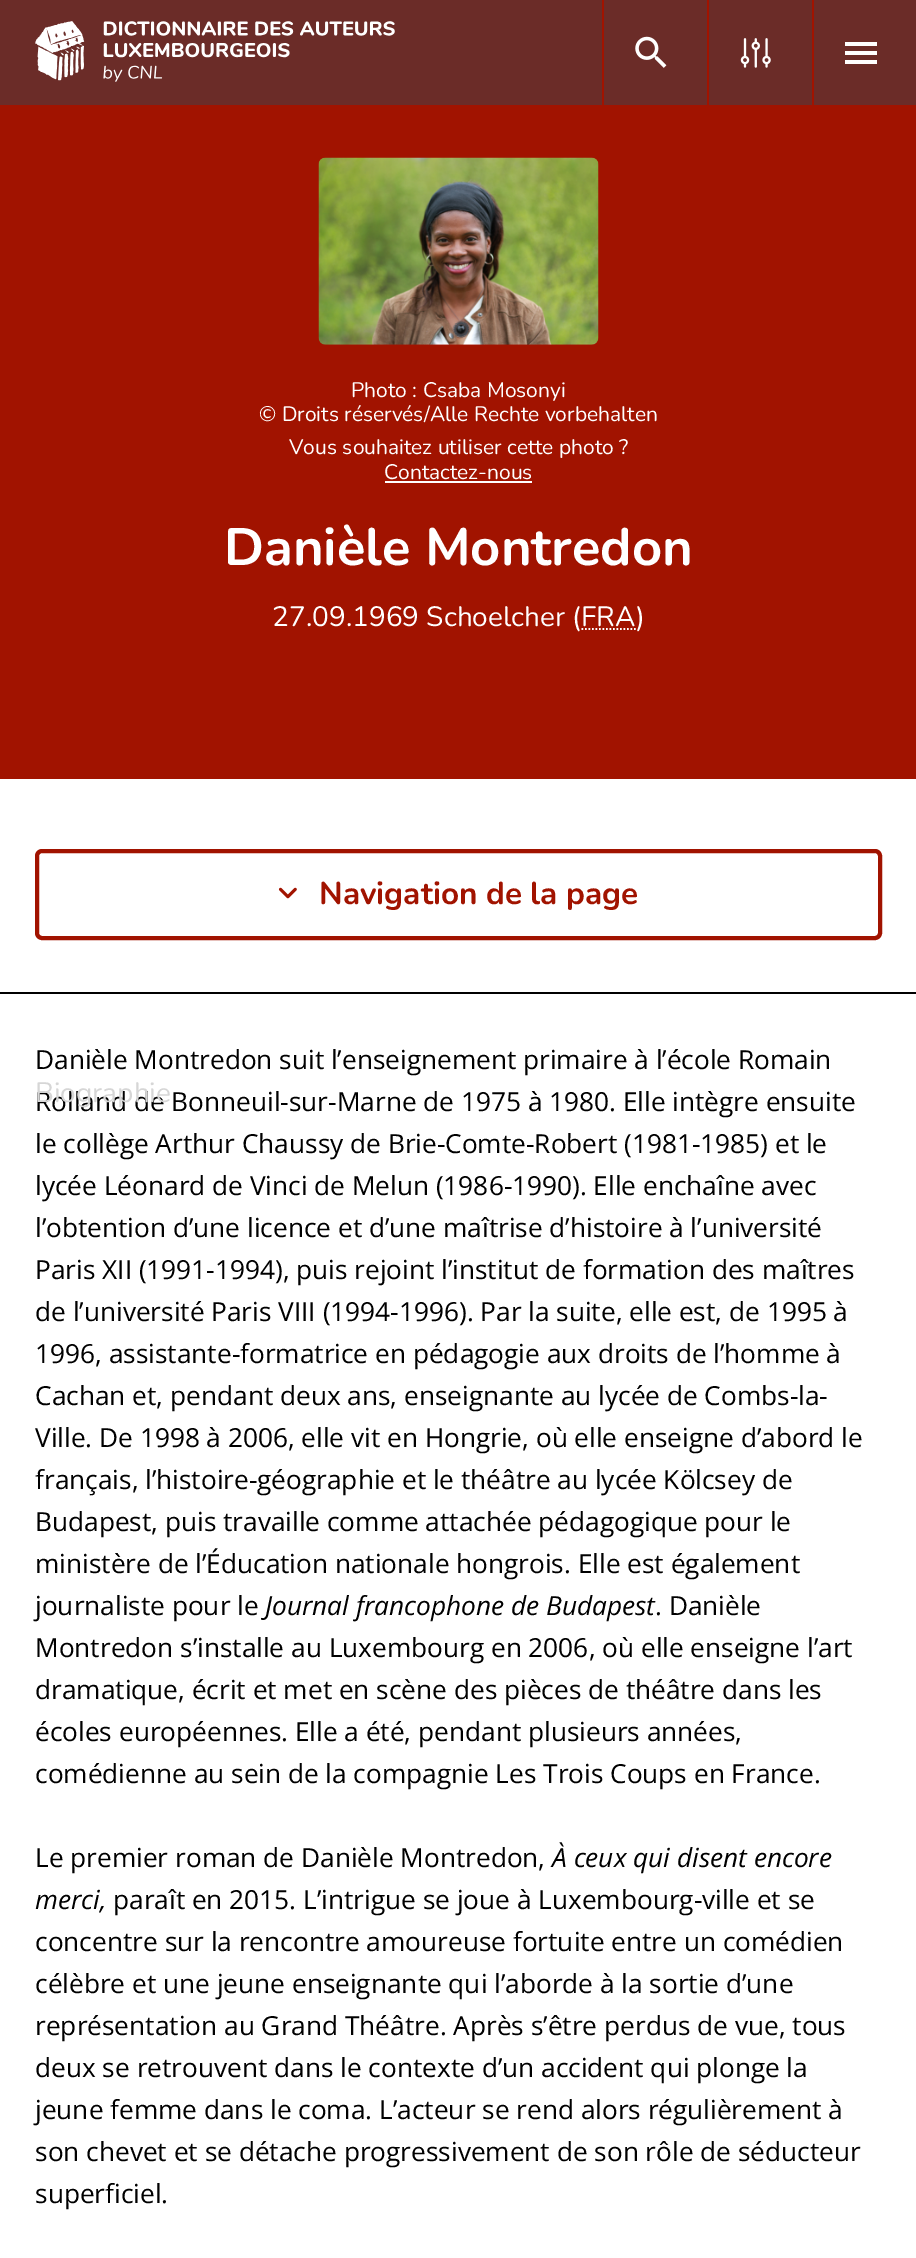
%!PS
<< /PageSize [916 2258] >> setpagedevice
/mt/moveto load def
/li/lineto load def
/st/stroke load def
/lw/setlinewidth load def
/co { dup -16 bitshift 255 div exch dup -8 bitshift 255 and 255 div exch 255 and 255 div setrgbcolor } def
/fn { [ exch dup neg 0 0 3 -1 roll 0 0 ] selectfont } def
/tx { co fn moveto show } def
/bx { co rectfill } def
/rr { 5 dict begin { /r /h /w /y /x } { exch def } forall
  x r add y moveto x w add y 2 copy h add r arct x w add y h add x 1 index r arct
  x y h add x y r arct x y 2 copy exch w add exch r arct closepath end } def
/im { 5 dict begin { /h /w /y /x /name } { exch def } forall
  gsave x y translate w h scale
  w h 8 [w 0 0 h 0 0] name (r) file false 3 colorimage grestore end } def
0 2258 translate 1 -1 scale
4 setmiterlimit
0 0 916 2258 16#FFFFFF bx
0 0 916 105 16#6B2C28 bx
(media/1.raw) 35 21 360 61 im
602 0 2 105 16#A11300 bx
(media/2.raw) 635 36 32 32 im
707 0 2 105 16#A11300 bx
(media/3.raw) 740 38 31 30 im
812 0 2 105 16#A11300 bx
845 51 32 4 16#FFFFFF bx
845 42 32 4 16#FFFFFF bx
845 60 32 4 16#FFFFFF bx
0 105 916 674 16#A11300 bx
(media/4.raw) 318 157 281 188 im
385 481 147 2 16#FFFFFF bx
1.8 lw
[1.75 1.75] 0 setdash
581.5 629 mt 636 629 li st
0 992 916 2 16#000000 bx
16#A11300 co
4 lw
[] 0 setdash
37 851 843 87 5 rr st
(media/5.raw) 278 887 19 12 im
(Photo : Csaba Mosonyi) 351 397 /Nunito-Regular 21 16#FFFFFF tx
(© Droits réservés/Alle Rechte vorbehalten) 259 421 /Nunito-Regular 21 16#FFFFFF tx
(Vous souhaitez utiliser cette photo ?) 289 454 /Nunito-Regular 21 16#FFFFFF tx
(Contactez-nous) 384 479 /Nunito-Regular 21 16#FFFFFF tx
(Danièle Montredon) 224 565 /Nunito-Bold 52.5 16#FFFFFF tx
(27.09.1969 Schoelcher \(FRA\)) 272 626 /Nunito-Regular 28 16#FFFFFF tx
(Navigation de la page) 319 904 /Nunito-Bold 31.5 16#A11300 tx
(Danièle Montredon suit l’enseignement primaire à l’école Romain) 35 1069 /OpenSans-Regular 26.25 16#000000 tx
(Rolland de Bonneuil-sur-Marne de 1975 à 1980. Elle intègre ensuite) 35 1111 /OpenSans-Regular 26.25 16#000000 tx
(le collège Arthur Chaussy de Brie-Comte-Robert \(1981-1985\) et le) 35 1153 /OpenSans-Regular 26.25 16#000000 tx
(lycée Léonard de Vinci de Melun \(1986-1990\). Elle enchaîne avec) 35 1195 /OpenSans-Regular 26.25 16#000000 tx
(l’obtention d’une licence et d’une maîtrise d’histoire à l’université) 35 1237 /OpenSans-Regular 26.25 16#000000 tx
(Paris XII \(1991-1994\), puis rejoint l’institut de formation des maîtres) 35 1279 /OpenSans-Regular 26.25 16#000000 tx
(de l’université Paris VIII \(1994-1996\). Par la suite, elle est, de 1995 à) 35 1321 /OpenSans-Regular 26.25 16#000000 tx
(1996, assistante-formatrice en pédagogie aux droits de l’homme à) 35 1363 /OpenSans-Regular 26.25 16#000000 tx
(Cachan et, pendant deux ans, enseignante au lycée de Combs-la-) 35 1405 /OpenSans-Regular 26.25 16#000000 tx
(Ville. De 1998 à 2006, elle vit en Hongrie, où elle enseigne d’abord le) 35 1447 /OpenSans-Regular 26.25 16#000000 tx
(français, l’histoire-géographie et le théâtre au lycée Kölcsey de) 35 1489 /OpenSans-Regular 26.25 16#000000 tx
(Budapest, puis travaille comme attachée pédagogique pour le) 35 1531 /OpenSans-Regular 26.25 16#000000 tx
(ministère de l’Éducation nationale hongrois. Elle est également) 35 1573 /OpenSans-Regular 26.25 16#000000 tx
(journaliste pour le) 35 1615 /OpenSans-Regular 26.25 16#000000 tx
(Journal francophone de Budapest) 265 1615 /OpenSans-Italic 26.25 16#000000 tx
(. Danièle) 655 1615 /OpenSans-Regular 26.25 16#000000 tx
(Montredon s’installe au Luxembourg en 2006, où elle enseigne l’art) 35 1657 /OpenSans-Regular 26.25 16#000000 tx
(dramatique, écrit et met en scène des pièces de théâtre dans les) 35 1699 /OpenSans-Regular 26.25 16#000000 tx
(écoles européennes. Elle a été, pendant plusieurs années,) 35 1741 /OpenSans-Regular 26.25 16#000000 tx
(comédienne au sein de la compagnie Les Trois Coups en France.) 35 1783 /OpenSans-Regular 26.25 16#000000 tx
(Le premier roman de Danièle Montredon,) 35 1867 /OpenSans-Regular 26.25 16#000000 tx
(À ceux qui disent encore) 552 1867 /OpenSans-Italic 26.25 16#000000 tx
(merci,) 35 1909 /OpenSans-Italic 26.25 16#000000 tx
(paraît en 2015. L’intrigue se joue à Luxembourg-ville et se) 113 1909 /OpenSans-Regular 26.25 16#000000 tx
(concentre sur la rencontre amoureuse fortuite entre un comédien) 35 1951 /OpenSans-Regular 26.25 16#000000 tx
(célèbre et une jeune enseignante qui l’aborde à la sortie d’une) 35 1993 /OpenSans-Regular 26.25 16#000000 tx
(représentation au Grand Théâtre. Après s’être perdus de vue, tous) 35 2035 /OpenSans-Regular 26.25 16#000000 tx
(deux se retrouvent dans le contexte d’un accident qui plonge la) 35 2077 /OpenSans-Regular 26.25 16#000000 tx
(jeune femme dans le coma. L’acteur se rend alors régulièrement à) 35 2119 /OpenSans-Regular 26.25 16#000000 tx
(son chevet et se détache progressivement de son rôle de séducteur) 35 2161 /OpenSans-Regular 26.25 16#000000 tx
(superficiel.) 35 2203 /OpenSans-Regular 26.25 16#000000 tx
(Biographie) 35 1102 /Nunito-Regular 28 16#D6D6D6 tx
showpage
